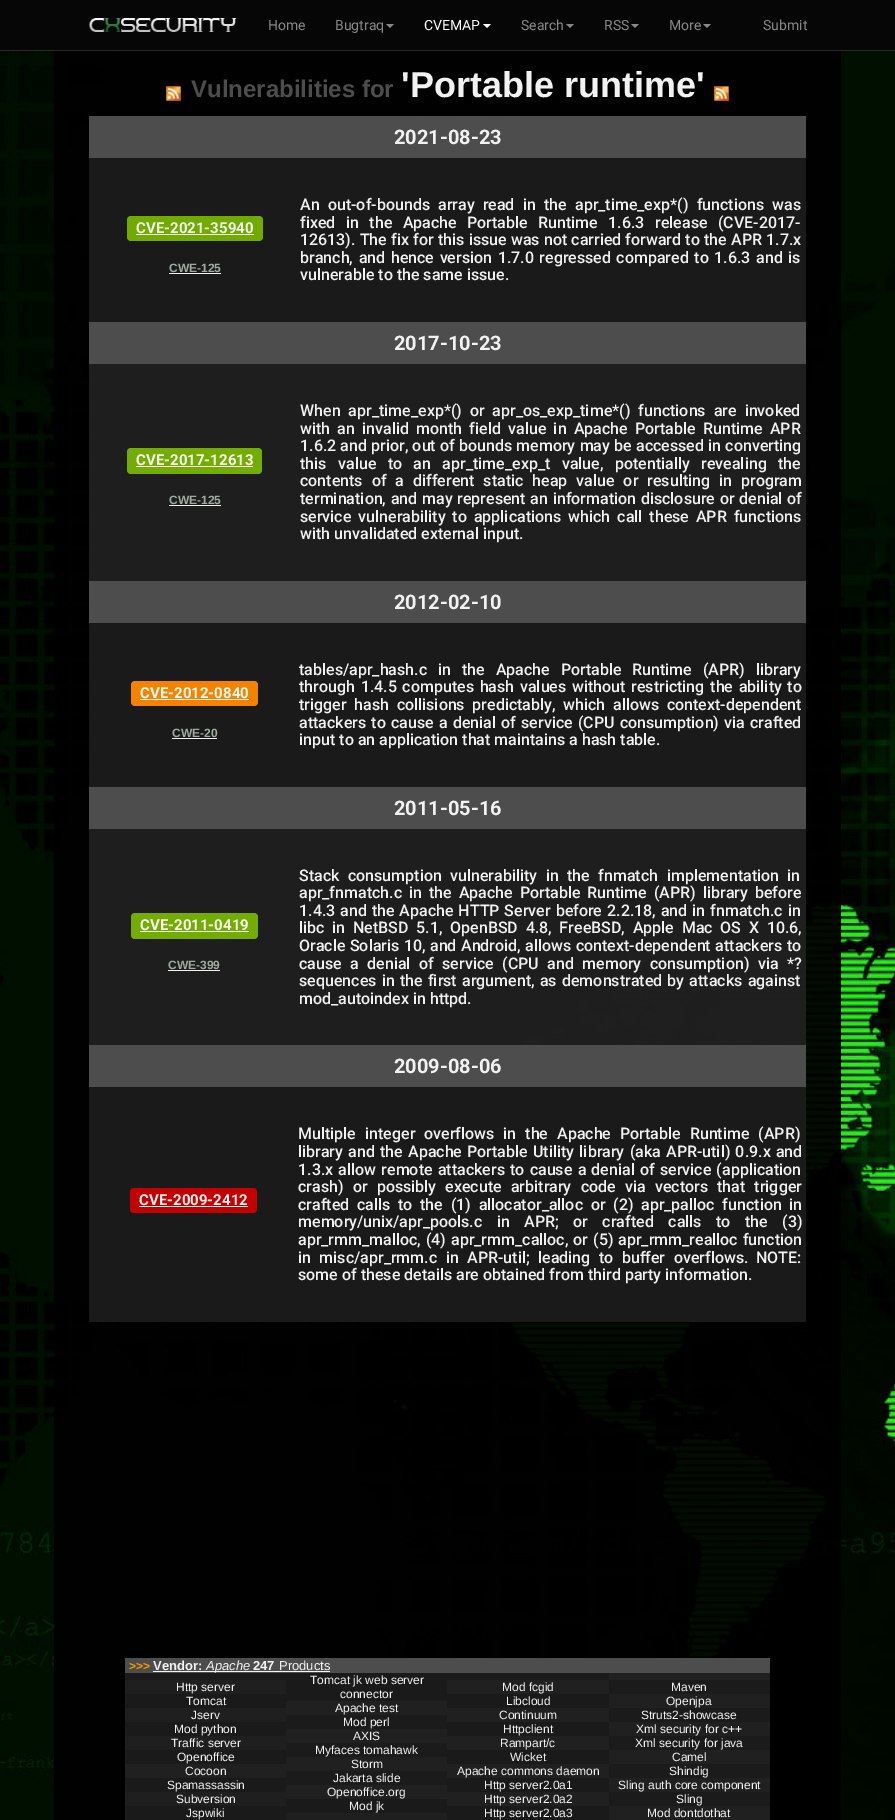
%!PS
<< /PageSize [895 1820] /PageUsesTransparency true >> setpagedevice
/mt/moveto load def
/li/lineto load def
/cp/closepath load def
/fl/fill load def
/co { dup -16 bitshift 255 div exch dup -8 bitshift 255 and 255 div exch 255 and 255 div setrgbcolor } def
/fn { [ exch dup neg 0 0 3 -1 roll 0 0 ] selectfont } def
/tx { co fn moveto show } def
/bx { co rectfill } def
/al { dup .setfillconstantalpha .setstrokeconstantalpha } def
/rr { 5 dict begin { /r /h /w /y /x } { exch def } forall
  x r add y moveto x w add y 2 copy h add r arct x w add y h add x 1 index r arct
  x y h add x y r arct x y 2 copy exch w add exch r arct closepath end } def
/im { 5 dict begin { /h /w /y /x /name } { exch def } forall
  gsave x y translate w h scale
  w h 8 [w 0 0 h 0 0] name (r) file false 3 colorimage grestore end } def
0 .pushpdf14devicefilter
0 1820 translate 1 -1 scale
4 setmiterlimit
0 0 895 1820 16#FFFFFF bx
(media/1.raw) 0 51 895 1769 im
0 0 895 50 16#060606 bx
0 50 895 1 16#282828 bx
(media/2.raw) 89 18 148 14 im
16#888888 co
386 24 mt 394 24 li 390 28 li cp fl
16#FFFFFF co
483 24 mt 491 24 li 487 28 li cp fl
16#888888 co
566 24 mt 574 24 li 570 28 li cp fl
631 24 mt 639 24 li 635 28 li cp fl
703 24 mt 711 24 li 707 28 li cp fl
0.95 al
54 51 35 1769 16#000000 bx
89 51 717 1769 16#000000 bx
1 al
(media/3.raw) 166 86 15 15 im
(media/3.raw) 714 86 15 15 im
89 116 717 42 16#4C4D4C bx
89 158 717 164 16#1A1A1A bx
16#71AB00 co
127 216 136 25 4 rr fl
136 234 118 1 16#F2F3F2 bx
169 273 52 1 16#F2F3F2 bx
89 322 717 42 16#4C4D4C bx
89 364 717 217 16#1E1E1E bx
16#73AC02 co
127 448 135 26 4 rr fl
136 466 117 1 16#F8FBF2 bx
169 505 52 1 16#F4F4F4 bx
89 581 717 42 16#4C4D4C bx
89 623 717 164 16#1A1A1A bx
16#F48301 co
131 681 127 25 4 rr fl
140 699 109 1 16#FEF9F2 bx
172 738 45 1 16#F2F3F2 bx
89 787 717 42 16#4C4D4C bx
89 829 210 216 16#1E1E1E bx
16#73AC02 co
131 913 127 26 4 rr fl
140 931 109 1 16#F8FBF2 bx
168 970 52 1 16#F2F3F2 bx
0.95 al
299 829 502 216 16#202020 bx
801 829 5 216 16#202020 bx
89 1045 717 42 16#505150 bx
1 al
89 1087 209 235 16#1A1A1A bx
16#C30101 co
130 1188 127 25 4 rr fl
139 1206 109 1 16#FCF2F2 bx
0.95 al
298 1087 503 235 16#1B1B1B bx
801 1087 5 235 16#1B1B1B bx
125 1658 645 15 16#505150 bx
1 al
153 1671 122 1 16#F2F3F2 bx
275 1671 55 1 16#F6F6F6 bx
0.95 al
125 1673 484 147 16#1B1B1B bx
1 al
125 1680 161 14 16#1E1F1E bx
125 1708 161 14 16#1E1F1E bx
125 1736 161 14 16#1E1F1E bx
125 1764 161 14 16#202020 bx
125 1792 161 14 16#1E1F1E bx
286 1701 161 98 16#202020 bx
286 1715 161 14 16#1B1B1B bx
286 1743 161 14 16#1B1B1B bx
286 1771 161 14 16#1B1B1B bx
286 1813 161 7 16#1E1F1E bx
447 1680 162 14 16#202020 bx
447 1708 162 14 16#202020 bx
447 1736 162 14 16#202020 bx
447 1764 162 14 16#202020 bx
447 1792 162 14 16#202020 bx
609 1673 161 147 16#202020 bx
609 1680 161 14 16#1B1B1B bx
609 1708 161 14 16#1B1B1B bx
609 1736 161 14 16#1B1B1B bx
609 1764 161 14 16#1B1B1B bx
609 1792 161 14 16#1B1B1B bx
0.95 al
806 51 35 1769 16#000000 bx
1 al
(Home) 268 30 /Roboto-Regular 14 16#888888 tx
(Bugtraq) 335 30 /Roboto-Regular 14 16#888888 tx
(CVEMAP) 424 30 /Roboto-Regular 14 16#FFFFFF tx
(Search) 521 30 /Roboto-Regular 14 16#888888 tx
(RSS) 604 30 /Roboto-Regular 14 16#888888 tx
(More) 669 30 /Roboto-Regular 14 16#888888 tx
(Submit) 763 30 /Roboto-Regular 14 16#888888 tx
(Vulnerabilities for) 191 97 /LiberationSans-Bold 24 16#4C4E4C tx
('Portable runtime') 401 97 /LiberationSans-Bold 36 16#F2F2F2 tx
(2021-08-23) 394 144 /Roboto-Bold 20 16#F2F2F2 tx
(CVE-2021-35940) 136 233 /Roboto-Bold 15 16#F2F2F2 tx
(CWE-125) 169 272 /LiberationSans-Bold 12 16#A0AAA0 tx
/Roboto-Medium 16 fn
16#F2F2F2 co
300 210 mt 4.25 0 32 (An out-of-bounds array read in the apr_time_exp*\(\) functions was) widthshow
300 228 mt 6.5 0 32 (fixed in the Apache Portable Runtime 1.6.3 release \(CVE-2017-) widthshow
300 245 mt .25 0 32 (12613\). The fix for this issue was not carried forward to the APR 1.7.x) widthshow
300 263 mt 1.6 0 32 (branch, and hence version 1.7.0 regressed compared to 1.6.3 and is) widthshow
(vulnerable to the same issue.) 300 280 /Roboto-Medium 16 16#F2F2F2 tx
(2017-10-23) 394 350 /Roboto-Bold 20 16#F2F2F2 tx
(CVE-2017-12613) 136 465 /Roboto-Bold 15 16#F8FBF2 tx
(CWE-125) 169 504 /LiberationSans-Bold 12 16#A0AAA0 tx
/Roboto-Medium 16 fn
16#F2F2F2 co
300 416 mt 4 0 32 (When apr_time_exp*\(\) or apr_os_exp_time*\(\) functions are invoked) widthshow
300 434 mt 3.25 0 32 (with an invalid month field value in Apache Portable Runtime APR) widthshow
300 451 mt .25 0 32 (1.6.2 and prior, out of bounds memory may be accessed in converting) widthshow
300 469 mt 7.5 0 32 (this value to an apr_time_exp_t value, potentially revealing the) widthshow
300 486 mt 5 0 32 (contents of a different static heap value or resulting in program) widthshow
300 504 mt .75 0 32 (termination, and may represent an information disclosure or denial of) widthshow
300 522 mt 3 0 32 (service vulnerability to applications which call these APR functions) widthshow
(with unvalidated external input.) 300 539 /Roboto-Medium 16 16#F2F2F2 tx
(2012-02-10) 394 609 /Roboto-Bold 20 16#F2F2F2 tx
(CVE-2012-0840) 140 698 /Roboto-Bold 15 16#FEF9F2 tx
(CWE-20) 172 737 /LiberationSans-Bold 12 16#A0AAA0 tx
/Roboto-Medium 16 fn
16#F2F2F2 co
299 675 mt 7 0 32 (tables/apr_hash.c in the Apache Portable Runtime \(APR\) library) widthshow
299 692 mt 1.75 0 32 (through 1.4.5 computes hash values without restricting the ability to) widthshow
299 710 mt 3.75 0 32 (trigger hash collisions predictably, which allows context-dependent) widthshow
299 728 mt 1.25 0 32 (attackers to cause a denial of service \(CPU consumption\) via crafted) widthshow
(input to an application that maintains a hash table.) 299 745 /Roboto-Medium 16 16#F2F2F2 tx
(2011-05-16) 394 815 /Roboto-Bold 20 16#F2F2F2 tx
(CVE-2011-0419) 140 930 /Roboto-Bold 15 16#F8FBF2 tx
(CWE-399) 168 969 /LiberationSans-Bold 12 16#A0AAA0 tx
/Roboto-Medium 16 fn
16#F2F2F2 co
299 881 mt 4.5 0 32 (Stack consumption vulnerability in the fnmatch implementation in) widthshow
299 898 mt 3 0 32 (apr_fnmatch.c in the Apache Portable Runtime \(APR\) library before) widthshow
299 916 mt 1 0 32 (1.4.3 and the Apache HTTP Server before 2.2.18, and in fnmatch.c in) widthshow
299 933 mt 3.75 0 32 (libc in NetBSD 5.1, OpenBSD 4.8, FreeBSD, Apple Mac OS X 10.6,) widthshow
299 951 mt .5 0 32 (Oracle Solaris 10, and Android, allows context-dependent attackers to) widthshow
299 969 mt 4.5 0 32 (cause a denial of service \(CPU and memory consumption\) via *?) widthshow
299 986 mt 1.25 0 32 (sequences in the first argument, as demonstrated by attacks against) widthshow
(mod_autoindex in httpd.) 299 1004 /Roboto-Medium 16 16#F2F2F2 tx
(2009-08-06) 394 1073 /Roboto-Bold 20 16#F2F2F2 tx
(CVE-2009-2412) 139 1205 /Roboto-Bold 15 16#FCF2F2 tx
/Roboto-Medium 16 fn
16#F2F2F2 co
298 1139 mt 5 0 32 (Multiple integer overflows in the Apache Portable Runtime \(APR\)) widthshow
298 1157 mt 1.25 0 32 (library and the Apache Portable Utility library \(aka APR-util\) 0.9.x and) widthshow
298 1175 mt 1.25 0 32 (1.3.x allow remote attackers to cause a denial of service \(application) widthshow
298 1192 mt 5.25 0 32 (crash\) or possibly execute arbitrary code via vectors that trigger) widthshow
298 1210 mt 3.75 0 32 (crafted calls to the \(1\) allocator_alloc or \(2\) apr_palloc function in) widthshow
298 1227 mt 10.5 0 32 (memory/unix/apr_pools.c in APR; or crafted calls to the \(3\)) widthshow
298 1245 mt 1 0 32 (apr_rmm_malloc, \(4\) apr_rmm_calloc, or \(5\) apr_rmm_realloc function) widthshow
298 1263 mt 4.5 0 32 (in misc/apr_rmm.c in APR-util; leading to buffer overflows.) widthshow
(NOTE:) 756 1263 /Roboto-Medium 16 16#F2F2F2 tx
(some of these details are obtained from third party information.) 298 1280 /Roboto-Medium 16 16#F2F2F2 tx
(>>>) 129 1670 /LiberationSans-Bold 12 16#F69B04 tx
(Vendor:) 153 1670 /LiberationSans-Bold 13 16#F2F2F2 tx
(Apache) 206 1670 /LiberationSans-Italic 13 16#F2F2F2 tx
(247) 253 1670 /LiberationSans-Bold 13 16#F2F2F2 tx
(Products) 279 1670 /LiberationSans-Regular 13 16#F2F2F2 tx
(Http server) 176 1691 /LiberationSans-Regular 12 16#F2F2F2 tx
(Tomcat) 186 1705 /LiberationSans-Regular 12 16#F2F2F2 tx
(Jserv) 191 1719 /LiberationSans-Regular 12 16#F2F2F2 tx
(Mod python) 174 1733 /LiberationSans-Regular 12 16#F2F2F2 tx
(Traffic server) 171 1747 /LiberationSans-Regular 12 16#F2F2F2 tx
(Openoffice) 177 1761 /LiberationSans-Regular 12 16#F2F2F2 tx
(Cocoon) 185 1775 /LiberationSans-Regular 12 16#F2F2F2 tx
(Spamassassin) 167 1789 /LiberationSans-Regular 12 16#F2F2F2 tx
(Subversion) 176 1803 /LiberationSans-Regular 12 16#F2F2F2 tx
(Jspwiki) 186 1817 /LiberationSans-Regular 12 16#F2F2F2 tx
(Tomcat jk web server) 310 1684 /LiberationSans-Regular 12 16#F2F2F2 tx
(connector) 340 1698 /LiberationSans-Regular 12 16#F2F2F2 tx
(Apache test) 335 1712 /LiberationSans-Regular 12 16#F2F2F2 tx
(Mod perl) 343 1726 /LiberationSans-Regular 12 16#F2F2F2 tx
(AXIS) 353 1740 /LiberationSans-Regular 12 16#F2F2F2 tx
(Myfaces tomahawk) 315 1754 /LiberationSans-Regular 12 16#F2F2F2 tx
(Storm) 351 1768 /LiberationSans-Regular 12 16#F2F2F2 tx
(Jakarta slide) 333 1782 /LiberationSans-Regular 12 16#F2F2F2 tx
(Openoffice.org) 327 1796 /LiberationSans-Regular 12 16#F2F2F2 tx
(Mod jk) 349 1810 /LiberationSans-Regular 12 16#F2F2F2 tx
(Mod fcgid) 502 1691 /LiberationSans-Regular 12 16#F2F2F2 tx
(Libcloud) 506 1705 /LiberationSans-Regular 12 16#F2F2F2 tx
(Continuum) 499 1719 /LiberationSans-Regular 12 16#F2F2F2 tx
(Httpclient) 503 1733 /LiberationSans-Regular 12 16#F2F2F2 tx
(Rampart/c) 500 1747 /LiberationSans-Regular 12 16#F2F2F2 tx
(Wicket) 510 1761 /LiberationSans-Regular 12 16#F2F2F2 tx
(Apache commons daemon) 457 1775 /LiberationSans-Regular 12 16#F2F2F2 tx
(Http server2.0a1) 484 1789 /LiberationSans-Regular 12 16#F2F2F2 tx
(Http server2.0a2) 484 1803 /LiberationSans-Regular 12 16#F2F2F2 tx
(Http server2.0a3) 484 1817 /LiberationSans-Regular 12 16#F2F2F2 tx
(Maven) 671 1691 /LiberationSans-Regular 12 16#F2F2F2 tx
(Openjpa) 666 1705 /LiberationSans-Regular 12 16#F2F2F2 tx
(Struts2-showcase) 641 1719 /LiberationSans-Regular 12 16#F2F2F2 tx
(Xml security for c++) 636 1733 /LiberationSans-Regular 12 16#F2F2F2 tx
(Xml security for java) 635 1747 /LiberationSans-Regular 12 16#F2F2F2 tx
(Camel) 672 1761 /LiberationSans-Regular 12 16#F2F2F2 tx
(Shindig) 669 1775 /LiberationSans-Regular 12 16#F2F2F2 tx
(Sling auth core component) 618 1789 /LiberationSans-Regular 12 16#F2F2F2 tx
(Sling) 676 1803 /LiberationSans-Regular 12 16#F2F2F2 tx
(Mod dontdothat) 647 1817 /LiberationSans-Regular 12 16#F2F2F2 tx
.poppdf14devicefilter showpage
